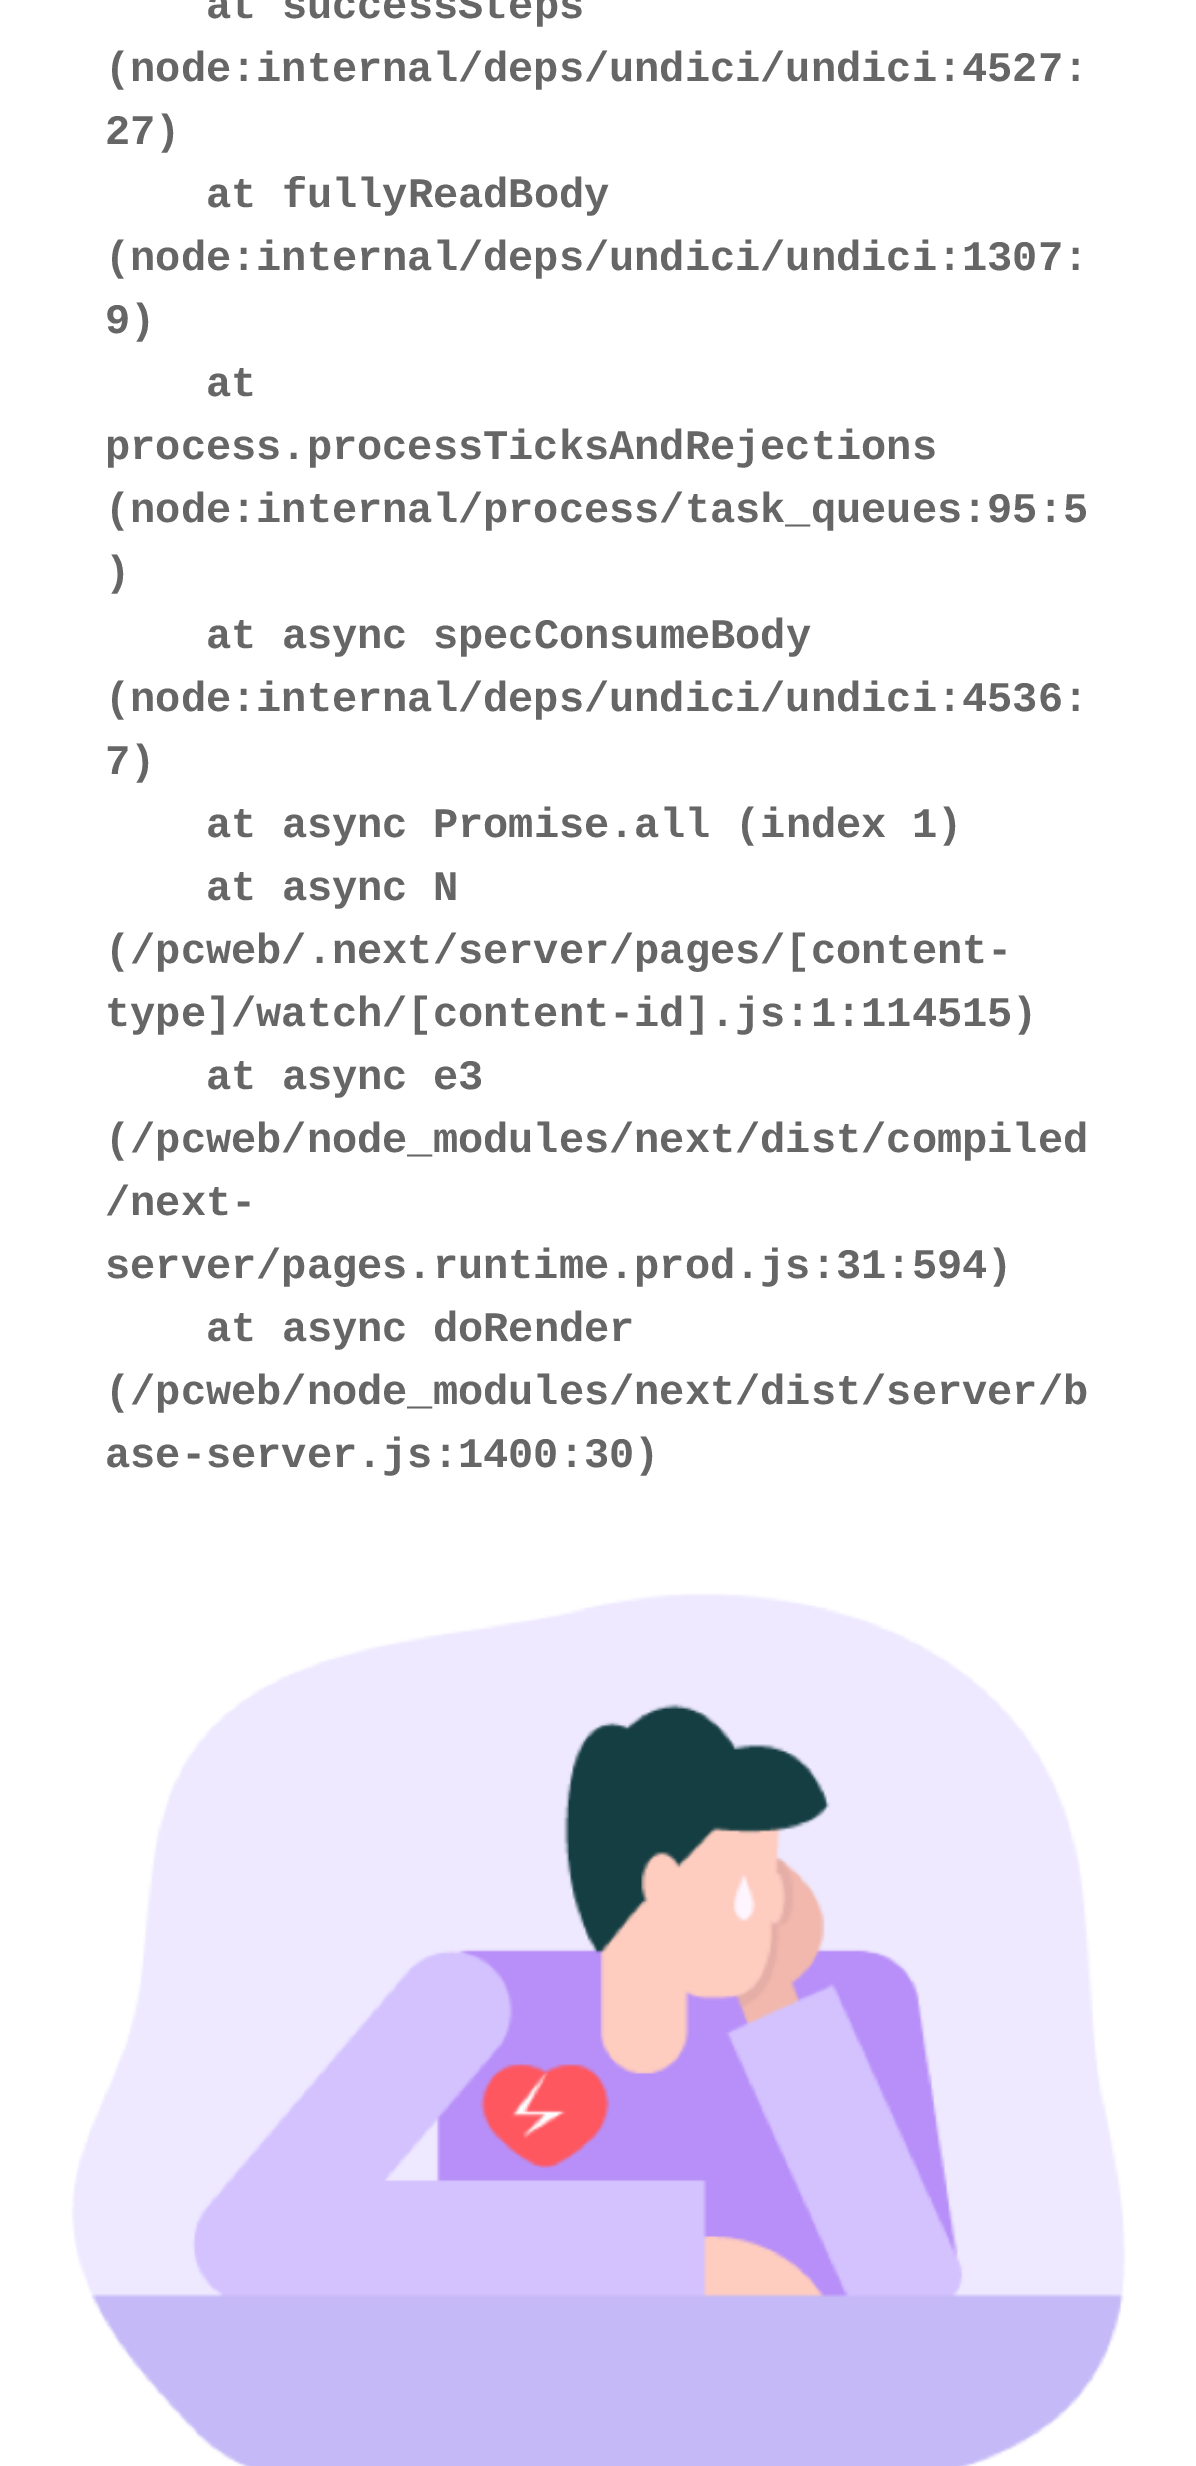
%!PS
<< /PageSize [1196 2466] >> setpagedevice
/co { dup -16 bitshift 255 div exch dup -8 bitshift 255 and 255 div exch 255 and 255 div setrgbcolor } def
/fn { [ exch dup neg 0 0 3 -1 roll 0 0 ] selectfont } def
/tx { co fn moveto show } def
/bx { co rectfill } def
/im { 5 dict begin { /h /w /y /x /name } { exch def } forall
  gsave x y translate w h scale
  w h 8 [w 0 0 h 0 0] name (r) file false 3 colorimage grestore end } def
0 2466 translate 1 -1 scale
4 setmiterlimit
0 0 1196 2466 16#FFFFFF bx
(media/1.raw) 71 1593 1055 873 im
(at successSteps) 206 18 /LiberationMono-Bold 42 16#666666 tx
(\(node:internal/deps/undici/undici:4527:) 105 81 /LiberationMono-Bold 42 16#666666 tx
(27\)) 105 144 /LiberationMono-Bold 42 16#666666 tx
(at fullyReadBody) 206 207 /LiberationMono-Bold 42 16#666666 tx
(\(node:internal/deps/undici/undici:1307:) 105 270 /LiberationMono-Bold 42 16#666666 tx
(9\)) 105 333 /LiberationMono-Bold 42 16#666666 tx
(at) 206 396 /LiberationMono-Bold 42 16#666666 tx
(process.processTicksAndRejections) 105 459 /LiberationMono-Bold 42 16#666666 tx
(\(node:internal/process/task_queues:95:5) 105 522 /LiberationMono-Bold 42 16#666666 tx
(\)) 105 585 /LiberationMono-Bold 42 16#666666 tx
(at async specConsumeBody) 206 648 /LiberationMono-Bold 42 16#666666 tx
(\(node:internal/deps/undici/undici:4536:) 105 711 /LiberationMono-Bold 42 16#666666 tx
(7\)) 105 774 /LiberationMono-Bold 42 16#666666 tx
(at async Promise.all \(index 1\)) 206 837 /LiberationMono-Bold 42 16#666666 tx
(at async N) 206 900 /LiberationMono-Bold 42 16#666666 tx
(\(/pcweb/.next/server/pages/[content-) 105 963 /LiberationMono-Bold 42 16#666666 tx
(type]/watch/[content-id].js:1:114515\)) 105 1026 /LiberationMono-Bold 42 16#666666 tx
(at async e3) 206 1089 /LiberationMono-Bold 42 16#666666 tx
(\(/pcweb/node_modules/next/dist/compiled) 105 1152 /LiberationMono-Bold 42 16#666666 tx
(/next-) 105 1215 /LiberationMono-Bold 42 16#666666 tx
(server/pages.runtime.prod.js:31:594\)) 105 1278 /LiberationMono-Bold 42 16#666666 tx
(at async doRender) 206 1341 /LiberationMono-Bold 42 16#666666 tx
(\(/pcweb/node_modules/next/dist/server/b) 105 1404 /LiberationMono-Bold 42 16#666666 tx
(ase-server.js:1400:30\)) 105 1467 /LiberationMono-Bold 42 16#666666 tx
showpage
